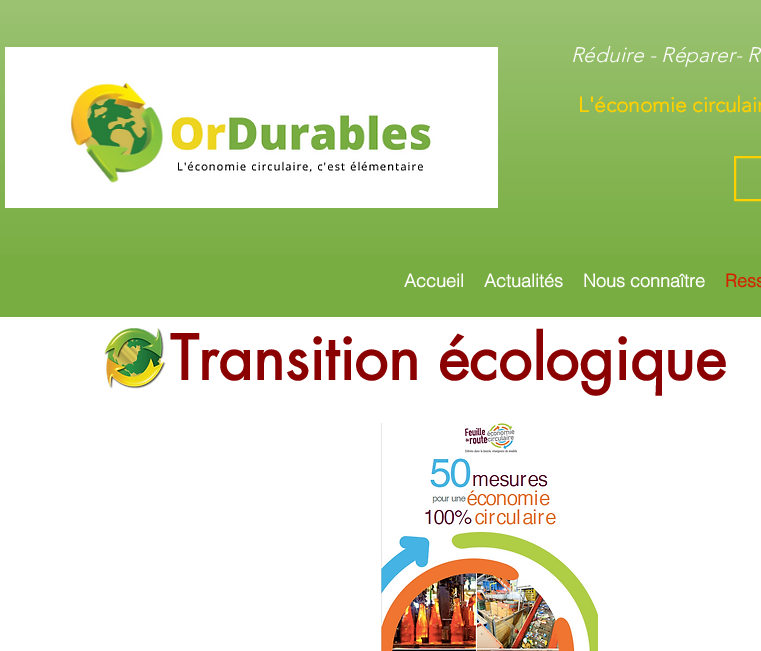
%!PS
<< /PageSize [761 651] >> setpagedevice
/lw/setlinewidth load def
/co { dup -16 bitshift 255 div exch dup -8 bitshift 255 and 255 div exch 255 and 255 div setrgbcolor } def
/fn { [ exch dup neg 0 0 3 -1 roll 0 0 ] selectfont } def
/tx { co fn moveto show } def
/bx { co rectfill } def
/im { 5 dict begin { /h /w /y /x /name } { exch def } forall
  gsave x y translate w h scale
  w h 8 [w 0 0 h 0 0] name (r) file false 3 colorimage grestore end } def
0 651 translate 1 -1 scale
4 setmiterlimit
0 0 761 651 16#FFFFFF bx
0 0 761 317 16#78AD41 bx
(media/1.raw) 0 0 761 254 im
(media/2.raw) 5 47 493 161 im
16#FFD000 co
2 lw
735 157 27 43 rectstroke
(media/3.raw) 104 328 62 61 im
(media/4.raw) 381 423 217 228 im
(Réduire - Réparer- R) 571 62 /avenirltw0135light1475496-LightItalic 21 16#FFFFFF tx
(L'économie circulair) 578 112 /avenirltw0135light1475496-Bold 21 16#FFD000 tx
(Accueil) 404 287 /helvetica-Bold 18 16#FFFFFF tx
(Actualités) 484 287 /helvetica-Bold 18 16#FFFFFF tx
(Nous connaître) 583 287 /helvetica-Bold 18 16#FFFFFF tx
(Ress) 725 287 /helvetica-Bold 18 16#D32300 tx
(Transition écologique) 170 380 /futura-Bold 60 16#8B0000 tx
showpage
